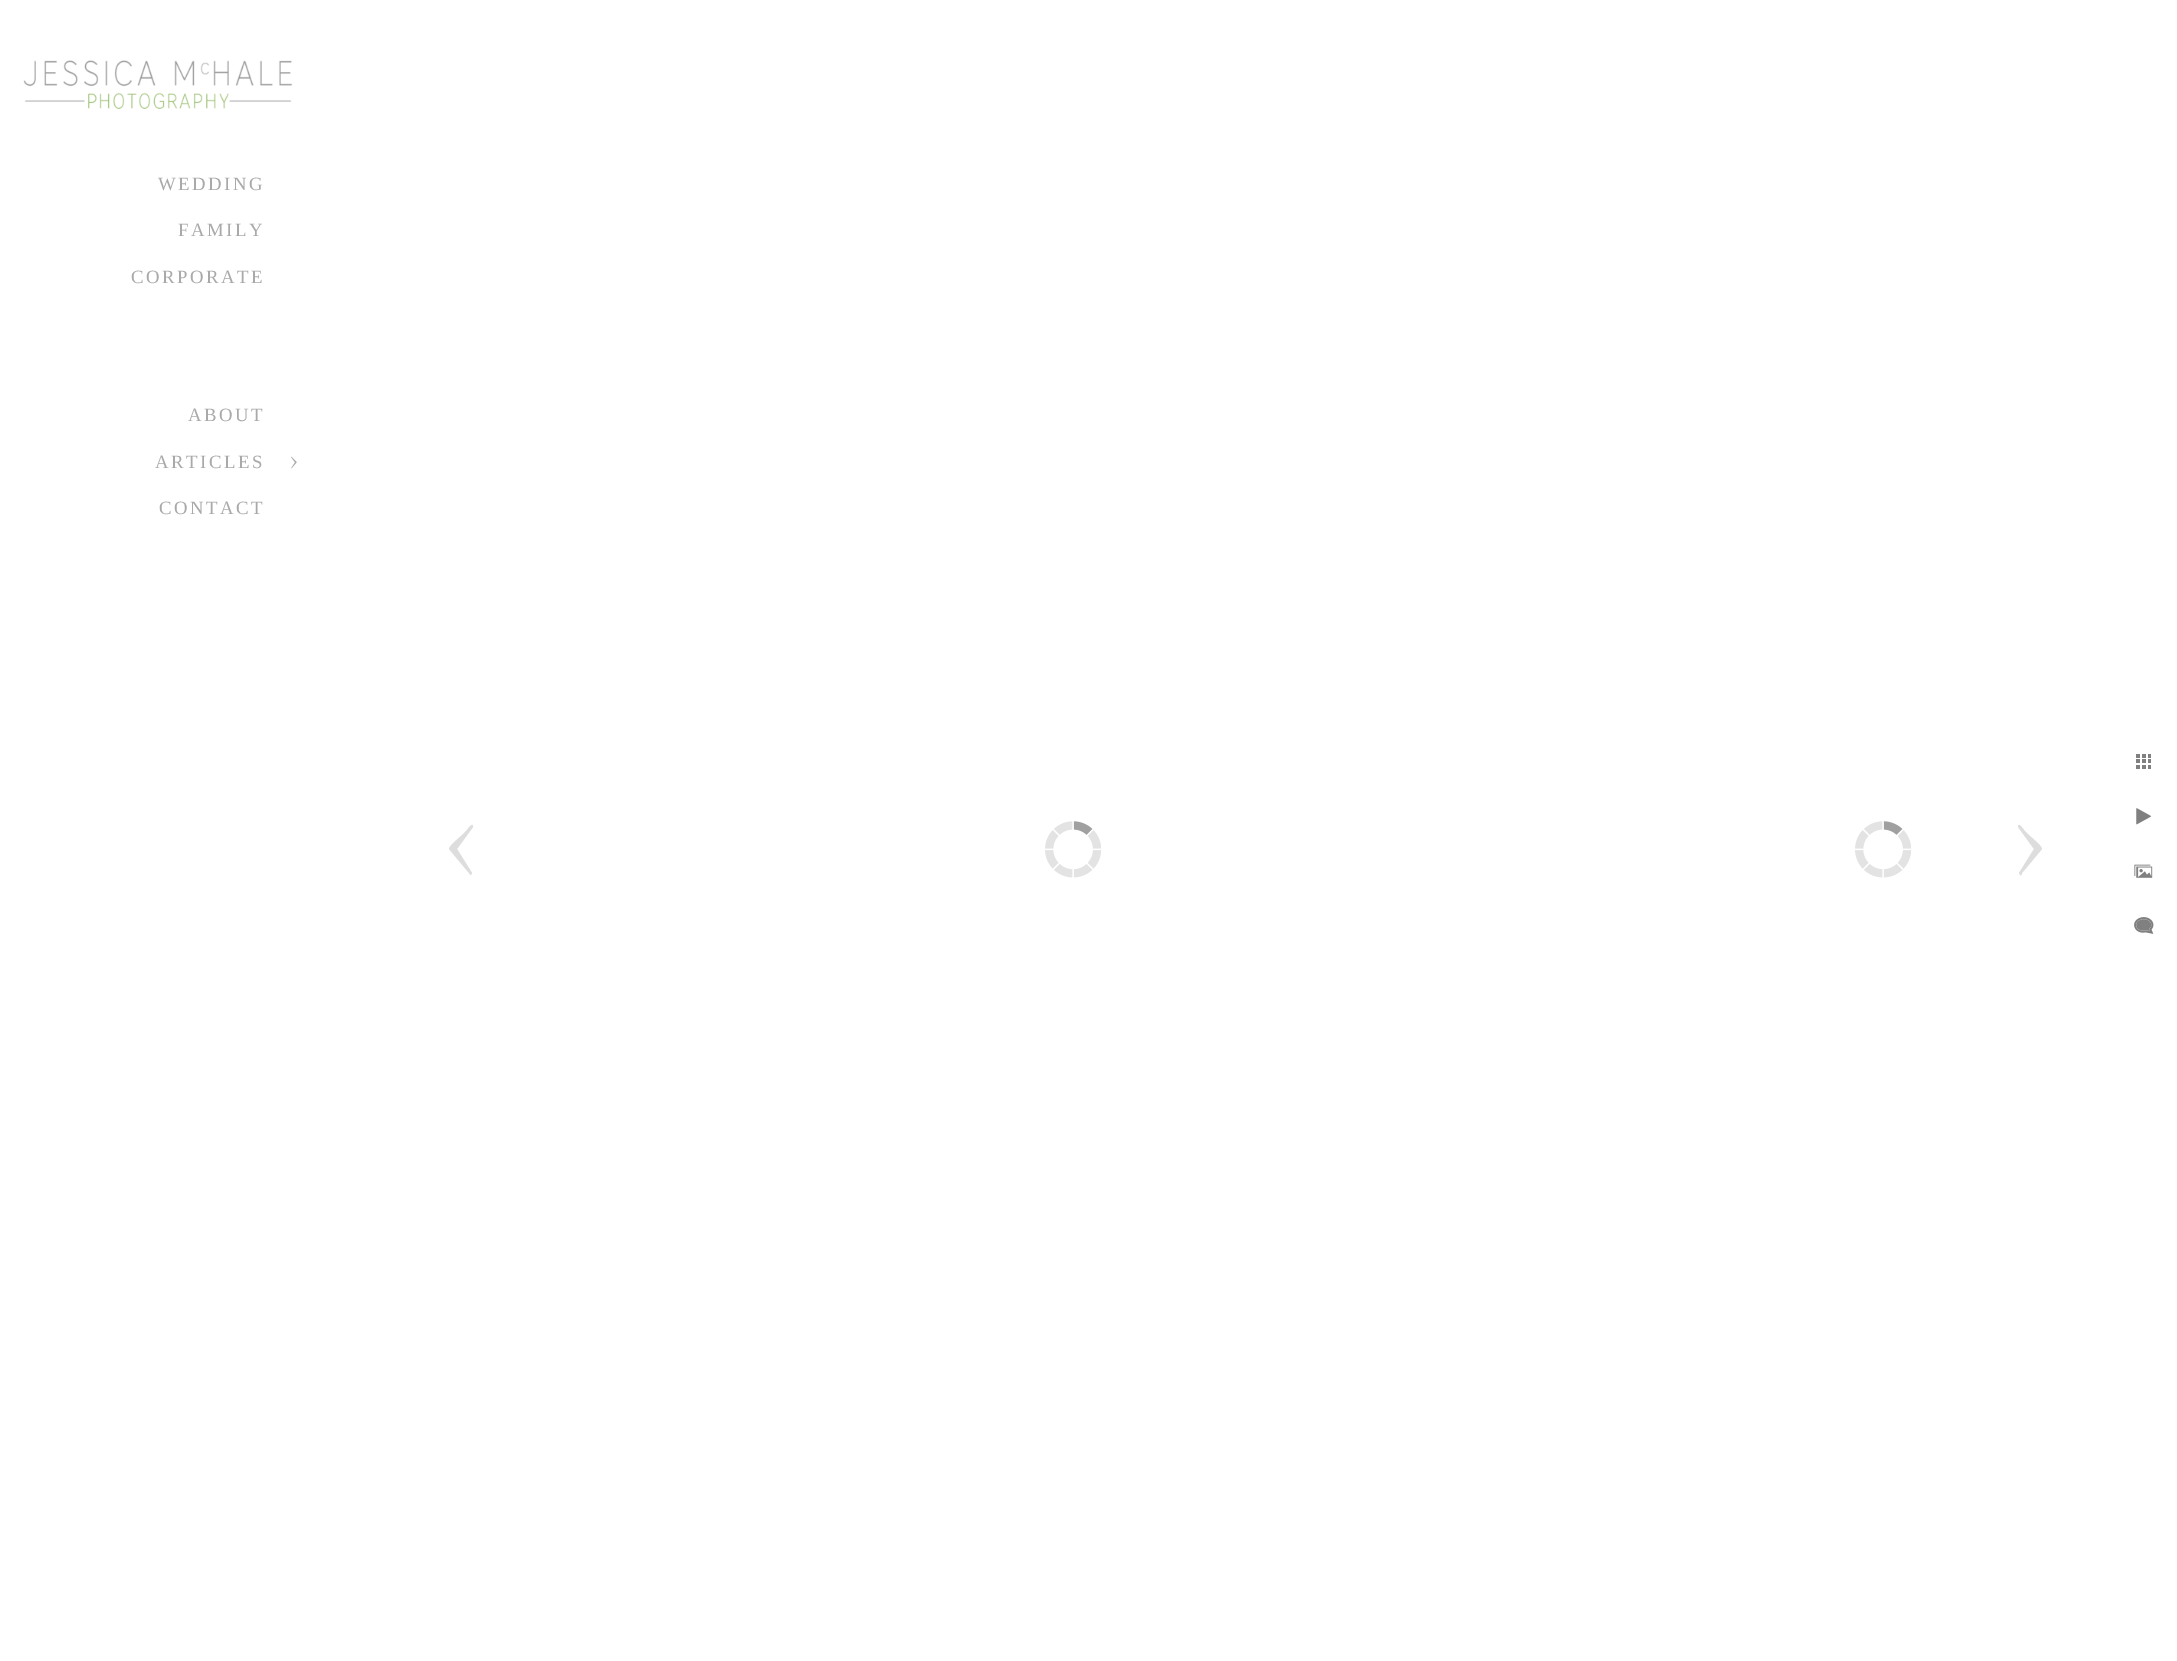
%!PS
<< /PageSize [2177 1661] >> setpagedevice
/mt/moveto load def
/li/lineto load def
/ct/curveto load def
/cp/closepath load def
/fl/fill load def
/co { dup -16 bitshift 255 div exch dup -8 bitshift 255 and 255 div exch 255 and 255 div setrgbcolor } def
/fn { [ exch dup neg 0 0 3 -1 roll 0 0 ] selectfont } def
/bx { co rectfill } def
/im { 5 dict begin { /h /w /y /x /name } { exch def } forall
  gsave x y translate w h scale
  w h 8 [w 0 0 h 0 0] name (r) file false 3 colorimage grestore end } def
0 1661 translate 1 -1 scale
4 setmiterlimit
0 0 2177 1661 16#FFFFFF bx
(media/1.raw) 23 60 269 49 im
(media/2.raw) 291 456 6 13 im
16#DDDDDD co
449 849 mt 449 846 459 838 461 836 ct 467 830 li 467 830 473 821 473 827 ct 457 849 li 472 873 li 471 875 li 471 876 470 874 469 873 ct cp fl
(media/3.raw) 1045 821 56 57 im
(media/3.raw) 1855 821 56 57 im
2042 849 mt 2042 846 2032 838 2030 836 ct 2024 830 li 2024 830 2018 821 2018 827 ct 2034 849 li 2019 873 li 2020 875 li 2021 876 2022 874 2022 873 ct cp fl
(media/4.raw) 2136 754 15 15 im
(media/5.raw) 2136 808 16 17 im
(media/6.raw) 2134 864 19 14 im
(media/7.raw) 2134 917 20 17 im
/LiberationSerif-Regular 18.75 fn
16#A9A9A9 co
158 190 mt 2.5 0 (WEDDING) ashow
178 236 mt 2.5 0 (FAMILY) ashow
131 283 mt 2.5 0 (CORPORATE) ashow
188 421 mt 2.5 0 (ABOUT) ashow
155 468 mt 2.5 0 (ARTICLES) ashow
159 514 mt 2.5 0 (CONTACT) ashow
showpage
